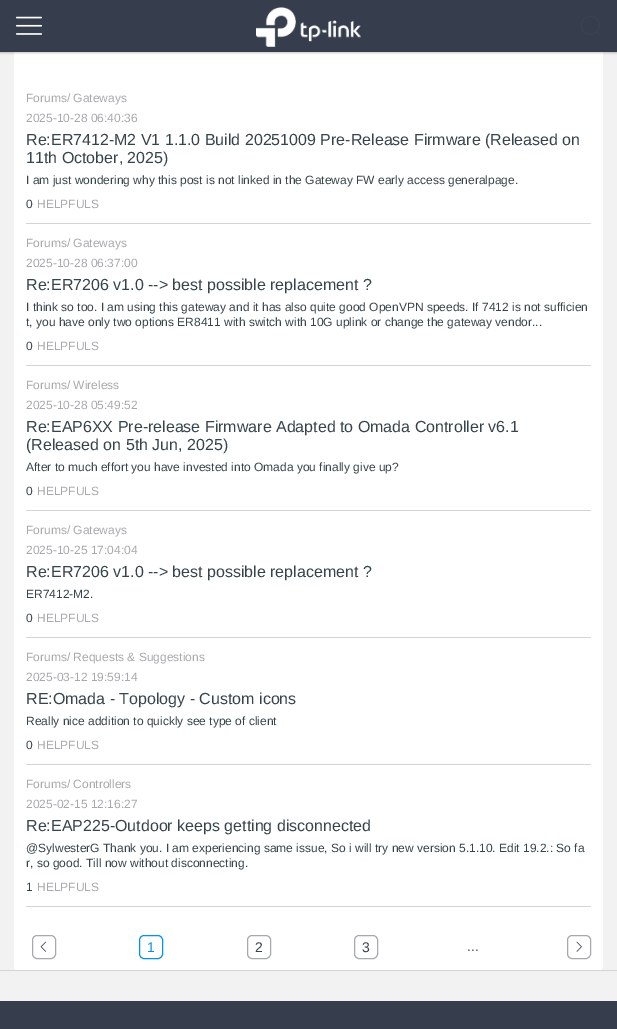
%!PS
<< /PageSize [617 1029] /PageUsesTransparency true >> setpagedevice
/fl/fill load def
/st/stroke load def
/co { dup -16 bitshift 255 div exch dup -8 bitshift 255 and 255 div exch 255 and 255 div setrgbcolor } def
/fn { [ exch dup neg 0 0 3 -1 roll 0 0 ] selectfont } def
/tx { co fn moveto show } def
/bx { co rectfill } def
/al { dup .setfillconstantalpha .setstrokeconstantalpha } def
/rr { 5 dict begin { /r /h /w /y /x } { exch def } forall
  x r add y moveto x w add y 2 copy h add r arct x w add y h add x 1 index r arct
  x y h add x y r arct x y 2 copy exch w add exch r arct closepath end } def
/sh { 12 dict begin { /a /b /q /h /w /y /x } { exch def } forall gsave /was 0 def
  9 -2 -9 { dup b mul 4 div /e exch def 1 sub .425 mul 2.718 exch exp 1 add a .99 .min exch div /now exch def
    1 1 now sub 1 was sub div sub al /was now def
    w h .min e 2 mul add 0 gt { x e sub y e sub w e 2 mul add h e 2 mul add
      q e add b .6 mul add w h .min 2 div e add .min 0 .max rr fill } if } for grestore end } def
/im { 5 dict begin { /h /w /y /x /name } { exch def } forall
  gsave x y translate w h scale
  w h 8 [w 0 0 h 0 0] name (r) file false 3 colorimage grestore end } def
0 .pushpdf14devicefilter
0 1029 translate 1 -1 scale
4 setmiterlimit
0 0 617 1029 16#F2F2F2 bx
16#FFFFFF co
14 13 589 958 5 rr fl
0 0 617 52 16#363E4D bx
(media/1.raw) 15 16 28 19 im
(media/2.raw) 256 7 105 40 im
(media/3.raw) 581 16 19 19 im
16#212121 co
0 52 617 1 0 1 .3 sh
26 223 565 1 16#D3D4D5 bx
26 365 565 1 16#D3D4D5 bx
26 510 565 1 16#D3D4D5 bx
26 637 565 1 16#D3D4D5 bx
26 764 565 1 16#D3D4D5 bx
26 906 565 1 16#D3D4D5 bx
16#A7A9AC co
32.5 935.5 23 23 4.5 rr st
(media/4.raw) 40 941 6 11 im
16#0492EB co
139.5 935.5 23 23 4.5 rr st
16#A7A9AC co
247.5 935.5 23 23 4.5 rr st
354.5 935.5 23 23 4.5 rr st
567.5 935.5 23 23 4.5 rr st
(media/5.raw) 576 941 6 11 im
0 970 617 1 16#D3D4D5 bx
0 1001 617 28 16#363E4D bx
(Forums/ Gateways) 26 102 /LiberationSans-Regular 12 16#A7A9AC tx
(2025-10-28 06:40:36) 26 122 /LiberationSans-Regular 12 16#A7A9AC tx
(Re:ER7412-M2 V1 1.1.0 Build 20251009 Pre-Release Firmware \(Released on) 26 145 /LiberationSans-Regular 16 16#36444B tx
(11th October, 2025\)) 26 163 /LiberationSans-Regular 16 16#36444B tx
(I am just wondering why this post is not linked in the Gateway FW early access generalpage.) 26 184 /LiberationSans-Regular 12 16#36444B tx
(0) 26 208 /LiberationSans-Regular 12 16#36444B tx
(HELPFULS) 37 208 /LiberationSans-Regular 12 16#A7A9AC tx
(Forums/ Gateways) 26 247 /LiberationSans-Regular 12 16#A7A9AC tx
(2025-10-28 06:37:00) 26 267 /LiberationSans-Regular 12 16#A7A9AC tx
(Re:ER7206 v1.0 --> best possible replacement ?) 26 290 /LiberationSans-Regular 16 16#36444B tx
(I think so too. I am using this gateway and it has also quite good OpenVPN speeds. If 7412 is not sufficien) 26 311 /LiberationSans-Regular 12 16#36444B tx
(t, you have only two options ER8411 with switch with 10G uplink or change the gateway vendor...) 26 326 /LiberationSans-Regular 12 16#36444B tx
(0) 26 350 /LiberationSans-Regular 12 16#36444B tx
(HELPFULS) 37 350 /LiberationSans-Regular 12 16#A7A9AC tx
(Forums/ Wireless) 26 389 /LiberationSans-Regular 12 16#A7A9AC tx
(2025-10-28 05:49:52) 26 409 /LiberationSans-Regular 12 16#A7A9AC tx
(Re:EAP6XX Pre-release Firmware Adapted to Omada Controller v6.1) 26 432 /LiberationSans-Regular 16 16#36444B tx
(\(Released on 5th Jun, 2025\)) 26 450 /LiberationSans-Regular 16 16#36444B tx
(After to much effort you have invested into Omada you finally give up?) 26 471 /LiberationSans-Regular 12 16#36444B tx
(0) 26 495 /LiberationSans-Regular 12 16#36444B tx
(HELPFULS) 37 495 /LiberationSans-Regular 12 16#A7A9AC tx
(Forums/ Gateways) 26 534 /LiberationSans-Regular 12 16#A7A9AC tx
(2025-10-25 17:04:04) 26 554 /LiberationSans-Regular 12 16#A7A9AC tx
(Re:ER7206 v1.0 --> best possible replacement ?) 26 577 /LiberationSans-Regular 16 16#36444B tx
(ER7412-M2.) 26 598 /LiberationSans-Regular 12 16#36444B tx
(0) 26 622 /LiberationSans-Regular 12 16#36444B tx
(HELPFULS) 37 622 /LiberationSans-Regular 12 16#A7A9AC tx
(Forums/ Requests & Suggestions) 26 661 /LiberationSans-Regular 12 16#A7A9AC tx
(2025-03-12 19:59:14) 26 681 /LiberationSans-Regular 12 16#A7A9AC tx
(RE:Omada - Topology - Custom icons) 26 704 /LiberationSans-Regular 16 16#36444B tx
(Really nice addition to quickly see type of client) 26 725 /LiberationSans-Regular 12 16#36444B tx
(0) 26 749 /LiberationSans-Regular 12 16#36444B tx
(HELPFULS) 37 749 /LiberationSans-Regular 12 16#A7A9AC tx
(Forums/ Controllers) 26 788 /LiberationSans-Regular 12 16#A7A9AC tx
(2025-02-15 12:16:27) 26 808 /LiberationSans-Regular 12 16#A7A9AC tx
(Re:EAP225-Outdoor keeps getting disconnected) 26 831 /LiberationSans-Regular 16 16#36444B tx
(@SylwesterG Thank you. I am experiencing same issue, So i will try new version 5.1.10. Edit 19.2.: So fa) 26 852 /LiberationSans-Regular 12 16#36444B tx
(r, so good. Till now without disconnecting.) 26 867 /LiberationSans-Regular 12 16#36444B tx
(1) 26 891 /LiberationSans-Regular 12 16#36444B tx
(HELPFULS) 37 891 /LiberationSans-Regular 12 16#A7A9AC tx
(1) 147 952 /LiberationSans-Regular 14 16#0492EB tx
(2) 255 952 /LiberationSans-Regular 14 16#36444B tx
(3) 362 952 /LiberationSans-Regular 14 16#36444B tx
(...) 467 951 /LiberationSans-Regular 14 16#36444B tx
.poppdf14devicefilter showpage
